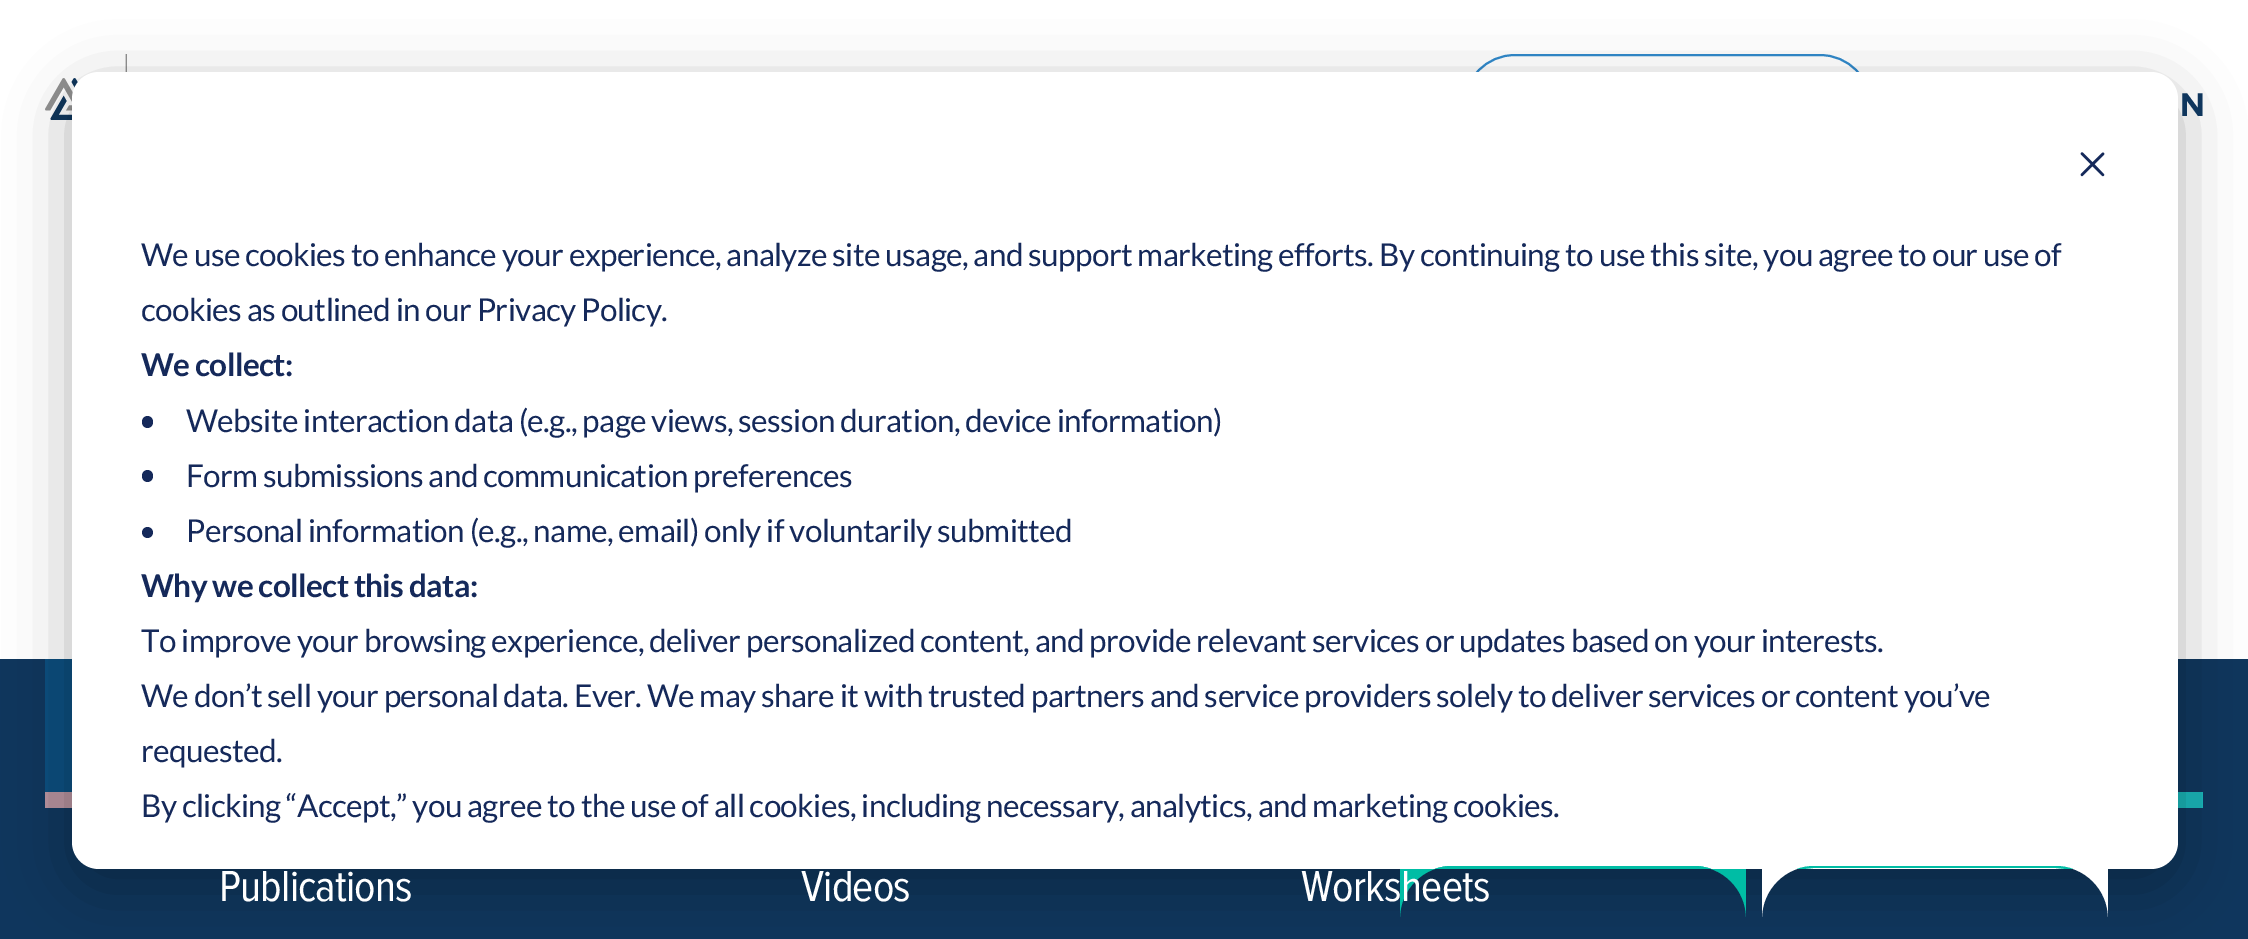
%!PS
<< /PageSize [2248 939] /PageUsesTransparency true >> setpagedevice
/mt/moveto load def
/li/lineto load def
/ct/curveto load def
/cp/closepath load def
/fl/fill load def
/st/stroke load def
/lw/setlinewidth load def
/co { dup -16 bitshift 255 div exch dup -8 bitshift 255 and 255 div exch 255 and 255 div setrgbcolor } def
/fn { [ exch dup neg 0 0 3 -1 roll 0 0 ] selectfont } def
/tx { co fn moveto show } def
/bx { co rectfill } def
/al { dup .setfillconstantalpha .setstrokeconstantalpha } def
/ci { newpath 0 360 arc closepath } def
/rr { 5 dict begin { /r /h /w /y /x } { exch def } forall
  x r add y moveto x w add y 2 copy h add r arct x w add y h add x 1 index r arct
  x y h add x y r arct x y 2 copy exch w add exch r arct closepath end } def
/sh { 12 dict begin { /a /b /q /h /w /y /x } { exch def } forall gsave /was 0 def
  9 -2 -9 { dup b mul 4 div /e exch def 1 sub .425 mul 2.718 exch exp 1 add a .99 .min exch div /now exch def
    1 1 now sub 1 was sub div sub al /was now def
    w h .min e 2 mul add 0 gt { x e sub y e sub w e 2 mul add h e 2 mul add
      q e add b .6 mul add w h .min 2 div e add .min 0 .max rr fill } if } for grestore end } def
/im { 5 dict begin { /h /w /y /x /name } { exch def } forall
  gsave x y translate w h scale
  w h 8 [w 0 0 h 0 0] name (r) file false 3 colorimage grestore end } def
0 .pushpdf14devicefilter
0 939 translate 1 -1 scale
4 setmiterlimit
0 0 2248 939 16#FFFFFF bx
(media/1.raw) 45 54 82 66 im
16#3089CB co
2 lw
1464 55 407 102 51 rr st
0 659 2248 280 16#0F365D bx
45 659 27 133 16#0B4E7D bx
45 792 27 16 16#B5919E bx
2178 792 25 16 16#1AB3B7 bx
16#000000 co
72 90 2106 797 27 31.5 .28 sh
16#FFFFFF co
72 72 2106 797 27 rr fl
(media/2.raw) 2080 152 25 25 im
16#15295A co
142 416 11 12 5.5 rr fl
142 470 11 12 5.5 rr fl
147.5 532.5 5.5 ci fl
16#00BDA5 co
1452 866 mt 1694 866 li 1722.5 866 1746 889.5 1746 918 ct 1746 869 li 1400 869 li 1400 918 li 1400 889.5 1423.5 866 1452 866 ct cp fl
1452 866 mt 1446 866 1440 867 1435 869 ct 1442 869 li 1452 868 li 1694 868 li 1704 869 li 1711 869 li 1706 867 1700 866 1694 866 ct cp fl
16#FFFFFF co
1814 866 mt 2056 866 li 2084.5 866 2108 889.5 2108 918 ct 2108 869 li 1762 869 li 1762 918 li 1762 889.5 1785.5 866 1814 866 ct cp fl
16#00BDA5 co
1814 866 mt 1808 866 1802 867 1797 869 ct 1804 869 li 1813 868 li 1854 868 li 2056 868 li 2066 869 li 2073 869 li 2068 867 2062 866 2056 866 ct cp fl
(N) 2180 116 /ProximaNova-Bold 34 16#0F365D tx
/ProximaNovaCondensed-Regular 45 fn
16#FFFFFF co
219 901 mt -.75 0 (Publications) ashow
801 901 mt -.75 0 (Videos) ashow
1301 901 mt -.75 0 (Worksheets) ashow
/Lato-Regular 31.5 fn
16#15295A co
141 266 mt -.61 0 (We use cookies to enhance your experience, analyze site usage, and support marketing efforts. By continuing to use this site, you agree to our use of) ashow
141 321 mt -.61 0 (cookies as outlined in our Privacy Policy.) ashow
/Lato-Bold 31.5 fn
141 376 mt -.61 0 (We collect:) ashow
/Lato-Regular 31.5 fn
186 432 mt -.61 0 (Website interaction data \(e.g., page views, session duration, device information\)) ashow
186 487 mt -.61 0 (Form submissions and communication preferences) ashow
186 542 mt -.61 0 (Personal information \(e.g., name, email\) only if voluntarily submitted) ashow
/Lato-Bold 31.5 fn
141 597 mt -.61 0 (Why we collect this data:) ashow
/Lato-Regular 31.5 fn
141 652 mt -.61 0 (To improve your browsing experience, deliver personalized content, and provide relevant services or updates based on your interests.) ashow
141 707 mt -.61 0 (We don’t sell your personal data. Ever. We may share it with trusted partners and service providers solely to deliver services or content you’ve) ashow
141 762 mt -.61 0 (requested.) ashow
141 817 mt -.61 0 (By clicking “Accept,” you agree to the use of all cookies, including necessary, analytics, and marketing cookies.) ashow
.poppdf14devicefilter showpage
